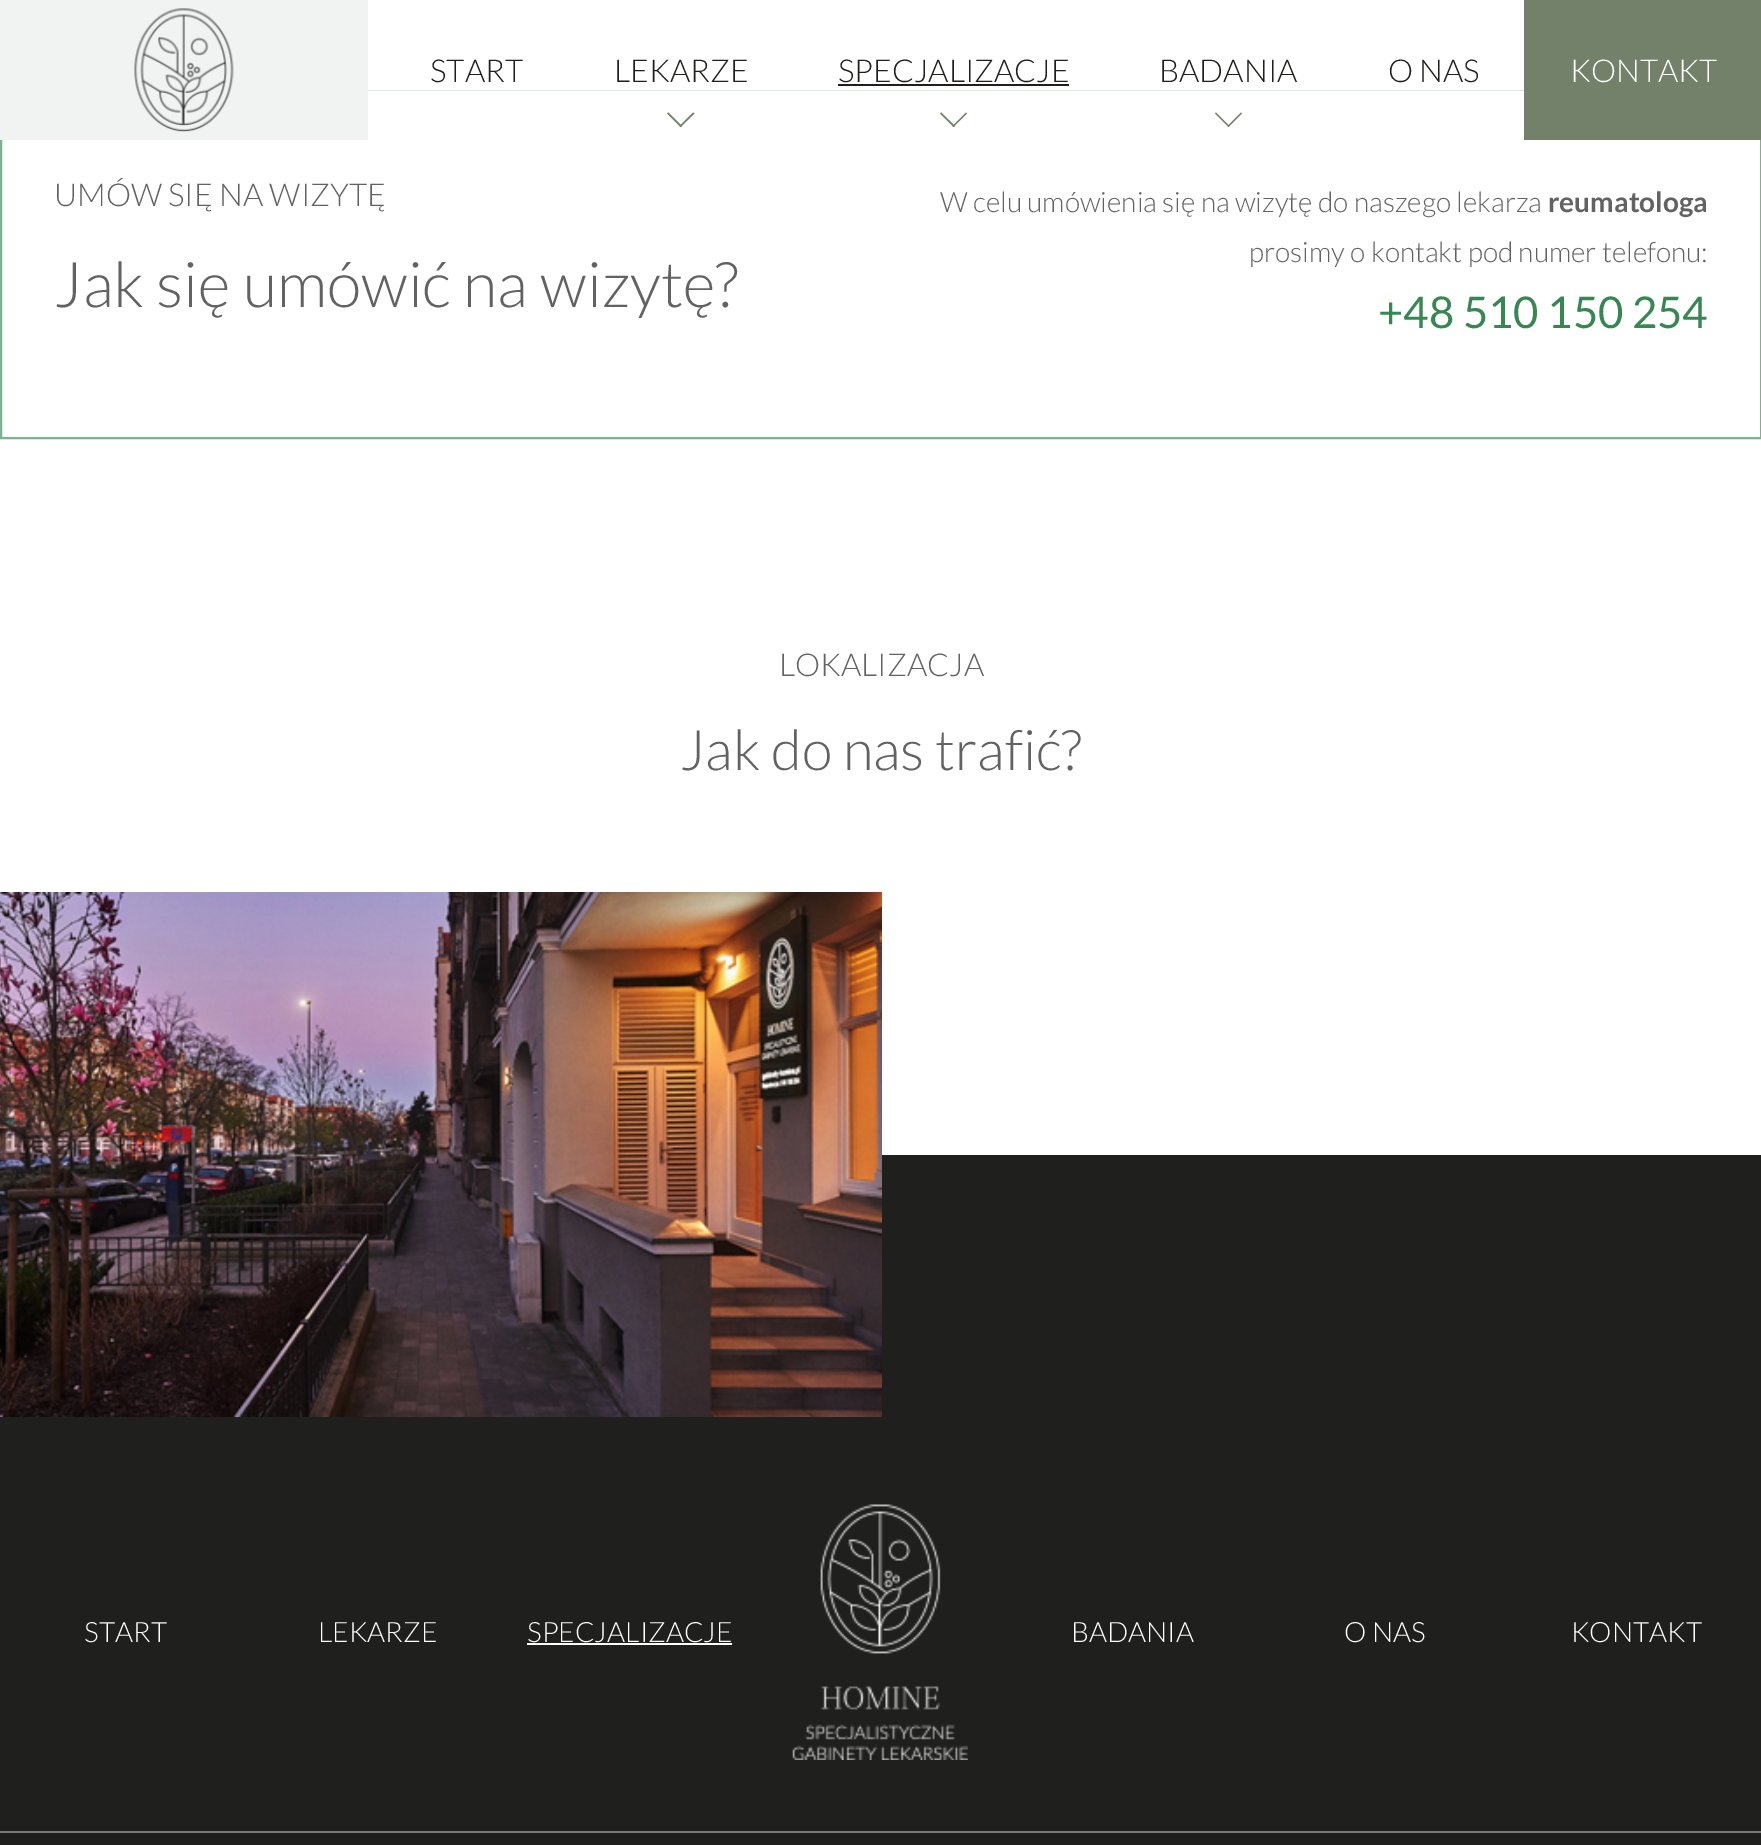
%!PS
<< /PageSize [1761 1845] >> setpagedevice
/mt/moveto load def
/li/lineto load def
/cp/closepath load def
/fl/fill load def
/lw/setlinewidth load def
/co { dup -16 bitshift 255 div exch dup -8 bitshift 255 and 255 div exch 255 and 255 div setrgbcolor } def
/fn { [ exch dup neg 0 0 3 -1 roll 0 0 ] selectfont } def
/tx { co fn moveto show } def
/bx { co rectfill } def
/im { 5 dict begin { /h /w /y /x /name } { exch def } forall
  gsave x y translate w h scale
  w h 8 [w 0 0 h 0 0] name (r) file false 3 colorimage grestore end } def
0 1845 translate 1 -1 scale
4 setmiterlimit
0 0 1761 1845 16#FFFFFF bx
16#7BB38D co
2 lw
1 89 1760 349 rectstroke
368 88 1156 2 16#FFFFFF bx
0 0 368 140 16#F1F2F2 bx
(media/1.raw) 134 8 100 124 im
16#73816A co
693 112.5 mt 694.5 113.5 li 680.5 127 li 679.5 126 li cp fl
668.5 112.5 mt 682 126 li 680.5 127 li 667 113.5 li cp fl
838 84 231 2 16#1F1F1D bx
16#73816A co
966 112.5 mt 967 113.5 li 953.5 127 li 952.5 126 li cp fl
941 112.5 mt 955 126 li 953.5 127 li 940 113.5 li cp fl
1241 112.5 mt 1242 113.5 li 1228.5 127 li 1227.5 126 li cp fl
1216 112.5 mt 1229.5 126 li 1228.5 127 li 1215 113.5 li cp fl
1524 0 237 140 16#73816A bx
0 1155 1761 690 16#1F1F1D bx
(media/2.raw) 0 892 882 525 im
527 1643 205 2 16#FFFFFF bx
(media/3.raw) 792 1504 176 256 im
0 1831 1761 2 16#797977 bx
(START) 430 82 /Lato-Light 31.5 16#1F1F1D tx
(LEKARZE) 614 82 /Lato-Light 31.5 16#1F1F1D tx
(SPECJALIZACJE) 838 82 /Lato-Light 31.5 16#1F1F1D tx
(BADANIA) 1159 82 /Lato-Light 31.5 16#1F1F1D tx
(O NAS) 1388 82 /Lato-Light 31.5 16#1F1F1D tx
(KONTAKT) 1570 82 /Lato-Light 31.5 16#FFFFFF tx
(UMÓW SIĘ NA WIZYTĘ) 54 206 /Lato-Light 31.5 16#616261 tx
(Jak się umówić na wizytę?) 54 307 /Lato-Light 63 16#616261 tx
(W celu umówienia się na wizytę do naszego lekarza) 940 212 /Lato-Light 28 16#616261 tx
(reumatologa) 1548 212 /Lato-Bold 28 16#616261 tx
(prosimy o kontakt pod numer telefonu:) 1249 262 /Lato-Light 28 16#616261 tx
(+48 510 150 254) 1378 328 /Lato-Regular 43.75 16#378752 tx
(LOKALIZACJA) 779 676 /Lato-Light 31.5 16#616261 tx
(Jak do nas trafić?) 680 770 /Lato-Light 56 16#616261 tx
(START) 84 1642 /Lato-Light 28 16#FFFFFF tx
(LEKARZE) 318 1642 /Lato-Light 28 16#FFFFFF tx
(SPECJALIZACJE) 527 1642 /Lato-Light 28 16#FFFFFF tx
(BADANIA) 1071 1642 /Lato-Light 28 16#FFFFFF tx
(O NAS) 1344 1642 /Lato-Light 28 16#FFFFFF tx
(KONTAKT) 1571 1642 /Lato-Light 28 16#FFFFFF tx
showpage
